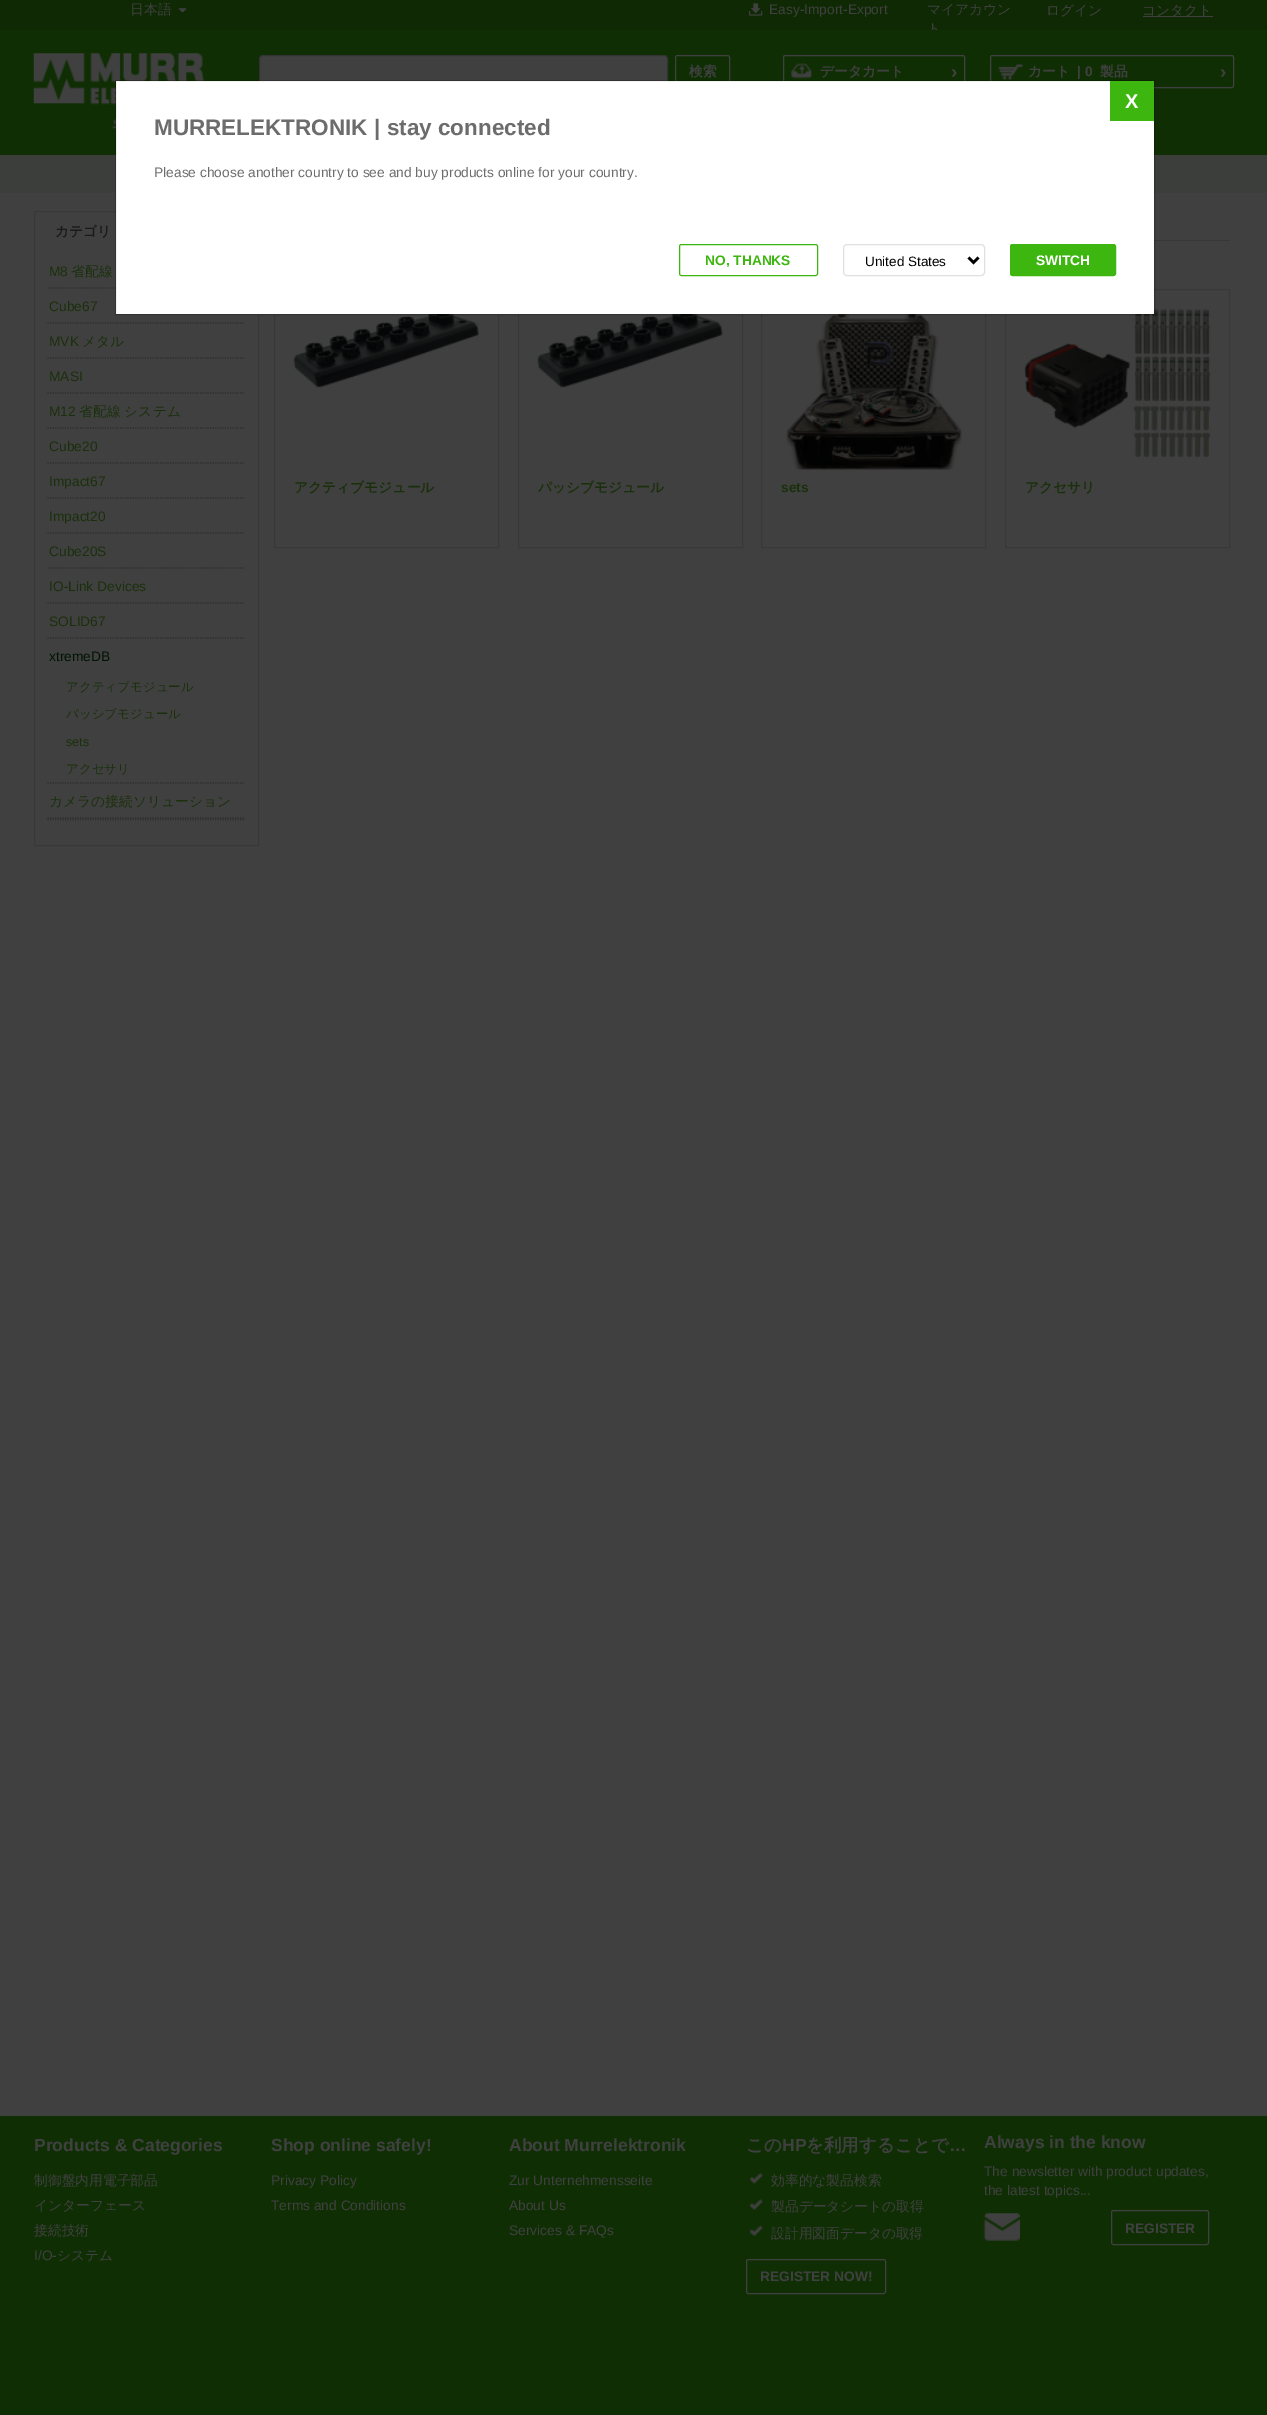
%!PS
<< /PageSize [1267 2415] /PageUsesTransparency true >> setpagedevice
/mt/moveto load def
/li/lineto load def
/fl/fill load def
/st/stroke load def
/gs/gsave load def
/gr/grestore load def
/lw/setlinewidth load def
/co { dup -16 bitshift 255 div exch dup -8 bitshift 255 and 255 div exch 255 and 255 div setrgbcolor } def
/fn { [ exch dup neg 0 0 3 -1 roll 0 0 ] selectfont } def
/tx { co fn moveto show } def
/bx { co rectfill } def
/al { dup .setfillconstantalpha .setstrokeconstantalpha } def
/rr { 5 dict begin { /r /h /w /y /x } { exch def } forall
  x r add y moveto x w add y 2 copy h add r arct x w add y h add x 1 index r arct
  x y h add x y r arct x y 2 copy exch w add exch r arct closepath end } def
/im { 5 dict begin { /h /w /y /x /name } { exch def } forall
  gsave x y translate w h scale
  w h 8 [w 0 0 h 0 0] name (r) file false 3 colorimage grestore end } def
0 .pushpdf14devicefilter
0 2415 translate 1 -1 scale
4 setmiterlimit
0 0 1267 2415 16#404040 bx
0 0 1267 30 16#0E2903 bx
(media/1.raw) 178 8 9 4 im
(media/2.raw) 748 3 15 13 im
1143 16 70 1 16#404040 bx
0 155 1267 38 16#3B3E3A bx
16#383838 co
34.5 211.5 224 634 rectstroke
16#2D2D2D co
1.2 lw
[1.25 1.25] 0 setdash
47.5 819.5 mt 245 819.5 li st
47.5 288 mt 245 288 li st
47.5 323 mt 245 323 li st
47.5 358 mt 245 358 li st
47.5 393 mt 245 393 li st
47.5 428 mt 245 428 li st
47.5 463 mt 245 463 li st
47.5 498 mt 245 498 li st
47.5 533 mt 245 533 li st
47.5 568 mt 245 568 li st
47.5 603 mt 245 603 li st
47.5 638 mt 245 638 li st
47.5 783 mt 245 783 li st
47.5 818 mt 245 818 li st
1154 240 76 1 16#383838 bx
1 lw
[] 0 setdash
274.5 289.5 224 258 rectstroke
(media/6.raw) 293 314 186 74 im
518.5 289.5 224 258 rectstroke
(media/7.raw) 537 314 186 74 im
761.5 289.5 224 258 rectstroke
(media/8.raw) 786 314 176 156 im
1005.5 289.5 224 258 rectstroke
(media/9.raw) 1024 309 187 149 im
0 2116 1267 299 16#0F2E04 bx
(media/10.raw) 750 2173 13 11 im
(media/11.raw) 750 2199 13 11 im
(media/12.raw) 750 2225 13 11 im
16#404040 co
746.5 2259.5 139 34 2 rr st
(media/13.raw) 983 2213 37 28 im
1111.5 2210.5 97 34 2 rr st
(日本語) 130 14 /WenQuanYiZenHei-Medium 13.75 16#404040 tx
(Easy-Import-Export) 769 14 /LiberationSans-Regular 13.75 16#404040 tx
(マイアカウン) 927 14 /WenQuanYiZenHei-Medium 13.75 16#404040 tx
(ト) 927 33 /WenQuanYiZenHei-Medium 13.75 16#404040 tx
(ログイン) 1046 15 /WenQuanYiZenHei-Medium 13.75 16#404040 tx
(コンタクト) 1142 15 /WenQuanYiZenHei-Medium 13.75 16#404040 tx
0 30 1267 125 16#0F2E04 bx
(media/3.raw) 33 53 172 76 im
16#404040 co
259.5 55.5 408 32 3.5 rr gs fl gr
16#333333 co
st
16#404040 co
675.5 55.5 54 32 2 rr st
(検索) 689 76 /WenQuanYiZenHei-Bold 13.75 16#404040 tx
783 55 182 3 16#1A2F0C bx
16#0F2E04 co
783.5 55.5 181 32 2 rr gs fl gr
16#404040 co
st
(media/4.raw) 791 63 21 16 im
(データカート) 820 76 /WenQuanYiZenHei-Bold 13.75 16#404040 tx
(›) 951 78 /LiberationSans-Bold 19 16#404040 tx
990 55 244 33 16#1A2F0C bx
16#0F2E04 co
990.5 55.5 243 32 2 rr gs fl gr
16#404040 co
st
(media/5.raw) 998 64 25 16 im
(カート) 1028 76 /WenQuanYiZenHei-Bold 13.75 16#404040 tx
(| 0) 1077 76 /LiberationSans-Bold 13.75 16#404040 tx
(製品) 1100 76 /WenQuanYiZenHei-Bold 13.75 16#404040 tx
(›) 1220 78 /LiberationSans-Bold 19 16#404040 tx
(カテゴリ) 55 236 /WenQuanYiZenHei-Bold 13.75 16#1B1B1B tx
(M8) 49 276 /LiberationSans-Regular 13.75 16#1A2F0C tx
(省配線) 71 276 /WenQuanYiZenHei-Medium 13.75 16#1A2F0C tx
(Cube67) 49 311 /LiberationSans-Regular 13.75 16#1A2F0C tx
(MVK) 49 346 /LiberationSans-Regular 13.75 16#1A2F0C tx
(メタル) 82 346 /WenQuanYiZenHei-Medium 13.75 16#1A2F0C tx
(MASI) 49 381 /LiberationSans-Regular 13.75 16#1A2F0C tx
(M12) 49 416 /LiberationSans-Regular 13.75 16#1A2F0C tx
(省配線 システム) 79 416 /WenQuanYiZenHei-Medium 13.75 16#1A2F0C tx
(Cube20) 49 451 /LiberationSans-Regular 13.75 16#1A2F0C tx
(Impact67) 49 486 /LiberationSans-Regular 13.75 16#1A2F0C tx
(Impact20) 49 521 /LiberationSans-Regular 13.75 16#1A2F0C tx
(Cube20S) 49 556 /LiberationSans-Regular 13.75 16#1A2F0C tx
(IO-Link Devices) 49 591 /LiberationSans-Regular 13.75 16#1A2F0C tx
(SOLID67) 49 626 /LiberationSans-Regular 13.75 16#1A2F0C tx
(xtremeDB) 49 661 /LiberationSans-Regular 13.75 16#001303 tx
(アクティブモジュール) 66 691 /WenQuanYiZenHei-Medium 12.5 16#1A2F0C tx
(パッシブモジュール) 66 718 /WenQuanYiZenHei-Medium 12.5 16#1A2F0C tx
(sets) 66 746 /LiberationSans-Regular 12.5 16#1A2F0C tx
(アクセサリ) 66 773 /WenQuanYiZenHei-Medium 12.5 16#1A2F0C tx
(カメラの接続ソリューション) 49 806 /WenQuanYiZenHei-Medium 13.75 16#1A2F0C tx
(アクティブモジュール) 294 492 /WenQuanYiZenHei-Bold 13.75 16#1A2F0C tx
(パッシブモジュール) 538 492 /WenQuanYiZenHei-Bold 13.75 16#1A2F0C tx
(sets) 781 492 /LiberationSans-Bold 13.75 16#1A2F0C tx
(アクセサリ) 1025 492 /WenQuanYiZenHei-Bold 13.75 16#1A2F0C tx
(Products & Categories) 34 2151 /LiberationSans-Bold 17.5 16#404040 tx
(制御盤内用電子部品) 34 2185 /WenQuanYiZenHei-Medium 13.75 16#404040 tx
(インターフェース) 34 2210 /WenQuanYiZenHei-Medium 13.75 16#404040 tx
(接続技術) 34 2235 /WenQuanYiZenHei-Medium 13.75 16#404040 tx
(I/O-) 34 2260 /LiberationSans-Regular 13.75 16#404040 tx
(システム) 57 2260 /WenQuanYiZenHei-Medium 13.75 16#404040 tx
(Shop online safely!) 271 2151 /LiberationSans-Bold 17.5 16#404040 tx
(Privacy Policy) 271 2185 /LiberationSans-Regular 13.75 16#404040 tx
(Terms and Conditions) 271 2210 /LiberationSans-Regular 13.75 16#404040 tx
(About Murrelektronik) 509 2151 /LiberationSans-Bold 17.5 16#404040 tx
(Zur Unternehmensseite) 509 2185 /LiberationSans-Regular 13.75 16#404040 tx
(About Us) 509 2210 /LiberationSans-Regular 13.75 16#404040 tx
(Services & FAQs) 509 2235 /LiberationSans-Regular 13.75 16#404040 tx
(この) 746 2151 /WenQuanYiZenHei-Bold 17.5 16#404040 tx
(HP) 782 2151 /LiberationSans-Bold 17.5 16#404040 tx
(を利用することで) 806 2151 /WenQuanYiZenHei-Bold 17.5 16#404040 tx
(…) 949 2151 /LiberationSans-Bold 17.5 16#404040 tx
(効率的な製品検索) 771 2185 /WenQuanYiZenHei-Medium 13.75 16#404040 tx
(製品データシートの取得) 771 2211 /WenQuanYiZenHei-Medium 13.75 16#404040 tx
(設計用図面データの取得) 771 2238 /WenQuanYiZenHei-Medium 13.75 16#404040 tx
(REGISTER NOW!) 760 2281 /LiberationSans-Bold 13.75 16#404040 tx
(Always in the know) 984 2148 /LiberationSans-Bold 17.5 16#404040 tx
(The newsletter with product updates,) 984 2176 /LiberationSans-Regular 13.75 16#404040 tx
(the latest topics...) 984 2195 /LiberationSans-Regular 13.75 16#404040 tx
(REGISTER) 1125 2233 /LiberationSans-Bold 13.75 16#404040 tx
116 81 1038 233 16#FFFFFF bx
0.2 al
16#000000 co
115.5 80.5 1039 234 rectstroke
1 al
1110 81 44 40 16#3DB60F bx
(X) 1125 108 /LiberationSans-Bold 20 16#FFFFFF tx
(MURRELEKTRONIK | stay connected) 154 135 /LiberationSans-Bold 22.5 16#6C6C6C tx
(Please choose another country to see and buy products online for your country.) 154 177 /LiberationSans-Regular 13.75 16#6C6C6C tx
16#3DB60F co
679.5 244.5 138 31 2 rr st
(NO, THANKS) 705 265 /LiberationSans-Bold 13.75 16#3DB60F tx
16#E0E0E0 co
843.5 244.5 141 31 3.5 rr st
16#000000 co
2.5 lw
968.5 257.5 mt 973.5 262.5 li 978.5 257.5 li st
(United States) 865 266 /LiberationSans-Regular 13.5 16#000000 tx
16#3DB60F co
1010.5 244.5 105 31 2 rr gs fl gr
1 lw
st
(SWITCH) 1036 265 /LiberationSans-Bold 13.75 16#FFFFFF tx
.poppdf14devicefilter showpage
